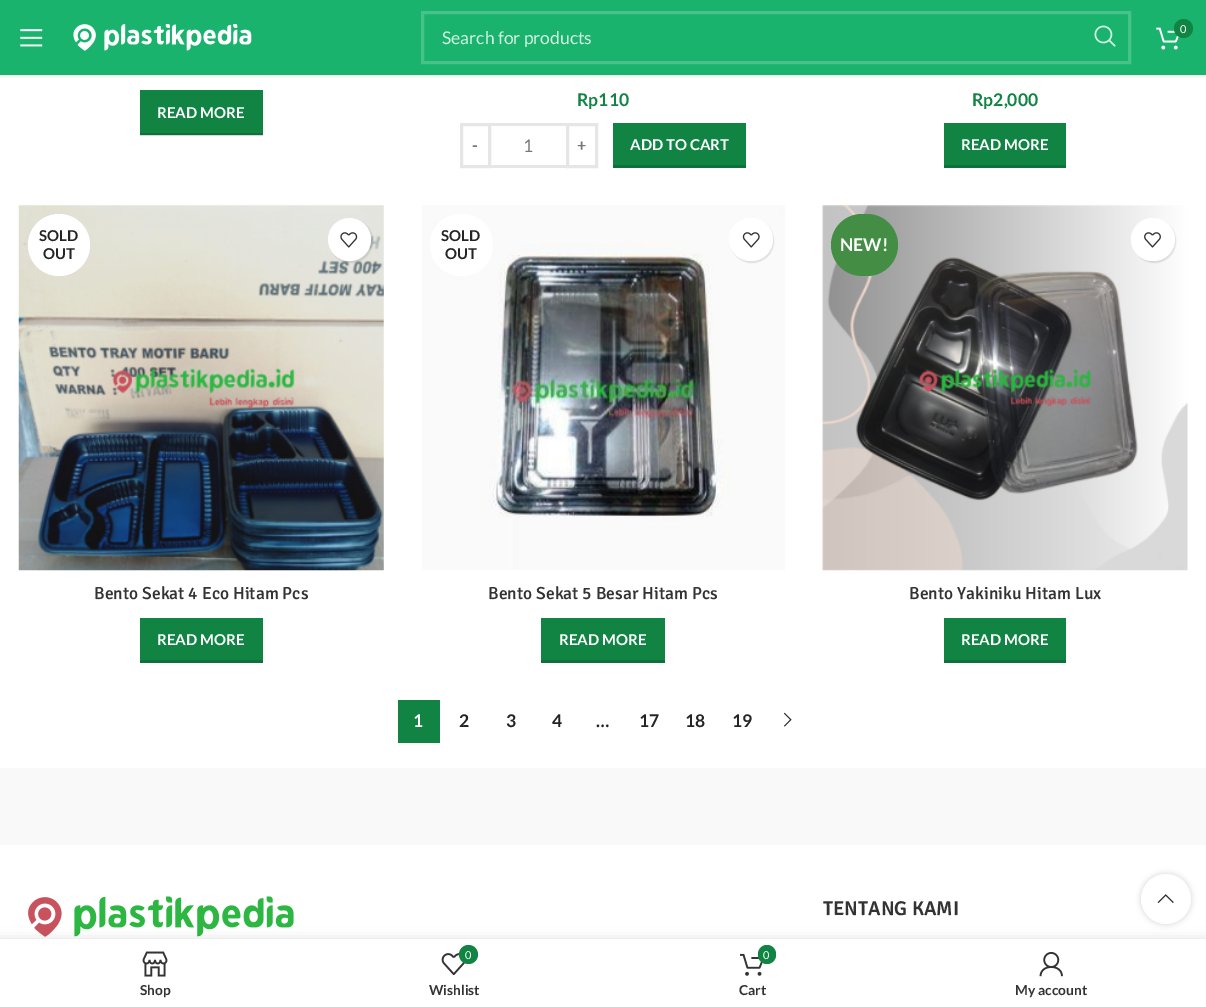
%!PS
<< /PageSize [1206 1007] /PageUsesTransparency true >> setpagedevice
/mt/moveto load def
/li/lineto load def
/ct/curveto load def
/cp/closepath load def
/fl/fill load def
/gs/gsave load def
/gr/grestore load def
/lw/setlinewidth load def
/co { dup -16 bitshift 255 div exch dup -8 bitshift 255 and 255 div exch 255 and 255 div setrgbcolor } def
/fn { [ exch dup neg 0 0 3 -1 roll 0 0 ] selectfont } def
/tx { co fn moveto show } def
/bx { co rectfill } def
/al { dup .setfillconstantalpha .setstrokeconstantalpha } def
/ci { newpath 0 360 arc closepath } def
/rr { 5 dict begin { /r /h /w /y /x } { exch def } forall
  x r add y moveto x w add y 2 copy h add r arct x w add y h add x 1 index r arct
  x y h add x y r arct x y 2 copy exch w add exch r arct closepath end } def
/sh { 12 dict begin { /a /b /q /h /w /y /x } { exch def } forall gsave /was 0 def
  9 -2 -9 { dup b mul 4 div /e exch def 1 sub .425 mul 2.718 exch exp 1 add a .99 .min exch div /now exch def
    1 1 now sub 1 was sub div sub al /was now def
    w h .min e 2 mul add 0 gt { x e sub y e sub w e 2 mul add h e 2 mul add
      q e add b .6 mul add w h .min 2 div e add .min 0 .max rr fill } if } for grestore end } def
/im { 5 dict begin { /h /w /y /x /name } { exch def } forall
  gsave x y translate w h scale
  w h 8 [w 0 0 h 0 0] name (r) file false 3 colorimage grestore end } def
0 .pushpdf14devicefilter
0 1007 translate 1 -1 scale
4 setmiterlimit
0 0 1206 1007 16#FFFFFF bx
140 135 123 1 16#D9D9D9 bx
gs
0 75 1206 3 rectclip
16#000000 co
0 1 1206 75 0 2 .1 sh
gr
0.9 al
0 0 1206 75 16#00AB5D bx
1 al
(media/1.raw) 20 29 23 18 im
(media/2.raw) 73 24 179 27 im
(media/3.raw) 1156 27 23 23 im
16#118444 co
1183.5 28.5 9.5 ci fl
0.2 al
16#FFFFFF co
3 lw
422.5 12.5 707 50 rectstroke
1 al
(media/4.raw) 1094 25 22 22 im
140 90 123 43 16#118444 bx
140 133 123 2 16#0E703A bx
16#E6E6E6 co
461.5 124.5 28 42 rectstroke
491 123 75 3 16#E6E6E6 bx
491 165 75 3 16#E6E6E6 bx
567.5 124.5 29 42 rectstroke
613 123 133 42 16#118444 bx
613 165 133 3 16#0E703A bx
944 123 122 42 16#118444 bx
944 165 122 3 16#0E703A bx
(media/5.raw) 18 205 366 366 im
16#FFFFFF co
59 245 31 ci fl
16#000000 co
329 219 44 44 22 .5 .1 sh
16#FFFFFF co
349.5 239.5 21.5 ci fl
(media/6.raw) 340 232 18 16 im
140 618 123 42 16#118444 bx
140 660 123 3 16#0E703A bx
(media/7.raw) 422 205 363 365 im
16#FFFFFF co
430 214 63 62 31 rr fl
16#000000 co
730 219 44 44 22 .5 .1 sh
16#FFFFFF co
729 218 44 43 21.5 rr fl
(media/8.raw) 742 232 18 16 im
541 618 124 42 16#118444 bx
541 660 124 3 16#0E703A bx
(media/9.raw) 822 205 366 366 im
16#438E44 co
831 214 67 62 31 rr fl
16#000000 co
1133 219 43 44 21.5 .5 .1 sh
16#FFFFFF co
1131 218 44 43 21.5 rr fl
(media/10.raw) 1144 232 17 16 im
944 618 122 42 16#118444 bx
944 660 122 3 16#0E703A bx
398 700 42 43 16#118444 bx
(media/11.raw) 783 712 9 15 im
0 768 1206 77 16#F9F9F9 bx
(media/12.raw) 28 896 266 41 im
gs
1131 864 mt 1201 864 li 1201 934 li 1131 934 li cp 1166 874 mt 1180 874 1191 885 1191 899 ct 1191 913 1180 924 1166 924 ct 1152 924 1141 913 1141 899 ct 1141 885 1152 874 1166 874 ct cp eoclip newpath
16#000000 co
1141 874 50 50 25 3 .17 sh
gr
0.9 al
16#FFFFFF co
1166 899 25 ci fl
1 al
(media/13.raw) 1157 894 17 9 im
16#000000 co
0 939 1206 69 0 5.5 .12 sh
0 939 1206 68 16#FFFFFF bx
(media/14.raw) 142 951 26 26 im
(media/15.raw) 441 953 24 22 im
16#118444 co
468.5 954.5 9.5 ci fl
(media/16.raw) 740 953 23 23 im
758 945 18 19 9 rr fl
(media/17.raw) 1039 952 24 25 im
(0) 1180 33 /Lato-Regular 11 16#FFFFFF tx
(Search for products) 442 44 /Lato-Regular 17.5 16#D1F0E2 tx
(READ MORE) 157 118 /Lato-Bold 15 16#FFFFFF tx
(Rp110) 577 106 /Lato-Bold 17.5 16#118444 tx
(-) 472 151 /Lato-Bold 16 16#777777 tx
(1) 523 152 /Lato-Regular 17.5 16#777777 tx
(+) 577 151 /Lato-Bold 16 16#777777 tx
(ADD TO CART) 630 150 /Lato-Bold 15 16#FFFFFF tx
(Rp2,000) 972 106 /Lato-Bold 17.5 16#118444 tx
(READ MORE) 961 150 /Lato-Bold 15 16#FFFFFF tx
(SOLD) 39 241 /Lato-Bold 15 16#242424 tx
(OUT) 43 259 /Lato-Bold 15 16#242424 tx
(Bento Sekat 4 Eco Hitam Pcs) 94 599 /Signika-Medium 17.5 16#333333 tx
(READ MORE) 157 645 /Lato-Bold 15 16#FFFFFF tx
(SOLD) 441 241 /Lato-Bold 15 16#242424 tx
(OUT) 445 259 /Lato-Bold 15 16#242424 tx
(Bento Sekat 5 Besar Hitam Pcs) 488 599 /Signika-Medium 17.5 16#333333 tx
(READ MORE) 559 645 /Lato-Bold 15 16#FFFFFF tx
(NEW!) 840 251 /Lato-Bold 17.5 16#FFFFFF tx
(Bento Yakiniku Hitam Lux) 909 599 /Signika-Medium 17.5 16#333333 tx
(READ MORE) 961 645 /Lato-Bold 15 16#FFFFFF tx
(1) 413 727 /Lato-Bold 17.5 16#FFFFFF tx
(2) 459 727 /Lato-Bold 17.5 16#242424 tx
(3) 506 727 /Lato-Bold 17.5 16#242424 tx
(4) 552 727 /Lato-Bold 17.5 16#242424 tx
(…) 596 727 /Lato-Bold 17.5 16#242424 tx
(17) 639 727 /Lato-Bold 17.5 16#242424 tx
(18) 685 727 /Lato-Bold 17.5 16#242424 tx
(19) 732 727 /Lato-Bold 17.5 16#242424 tx
(TENTANG KAMI) 823 915 /Signika-SemiBold 20 16#333333 tx
(Shop) 140 995 /Lato-Bold 13.75 16#333333 tx
(0) 465 959 /Lato-Regular 11 16#FFFFFF tx
(Wishlist) 429 995 /Lato-Bold 13.75 16#333333 tx
(0) 763 959 /Lato-Regular 11 16#FFFFFF tx
(Cart) 739 995 /Lato-Bold 13.75 16#333333 tx
(My account) 1015 995 /Lato-Bold 13.75 16#333333 tx
.poppdf14devicefilter showpage
